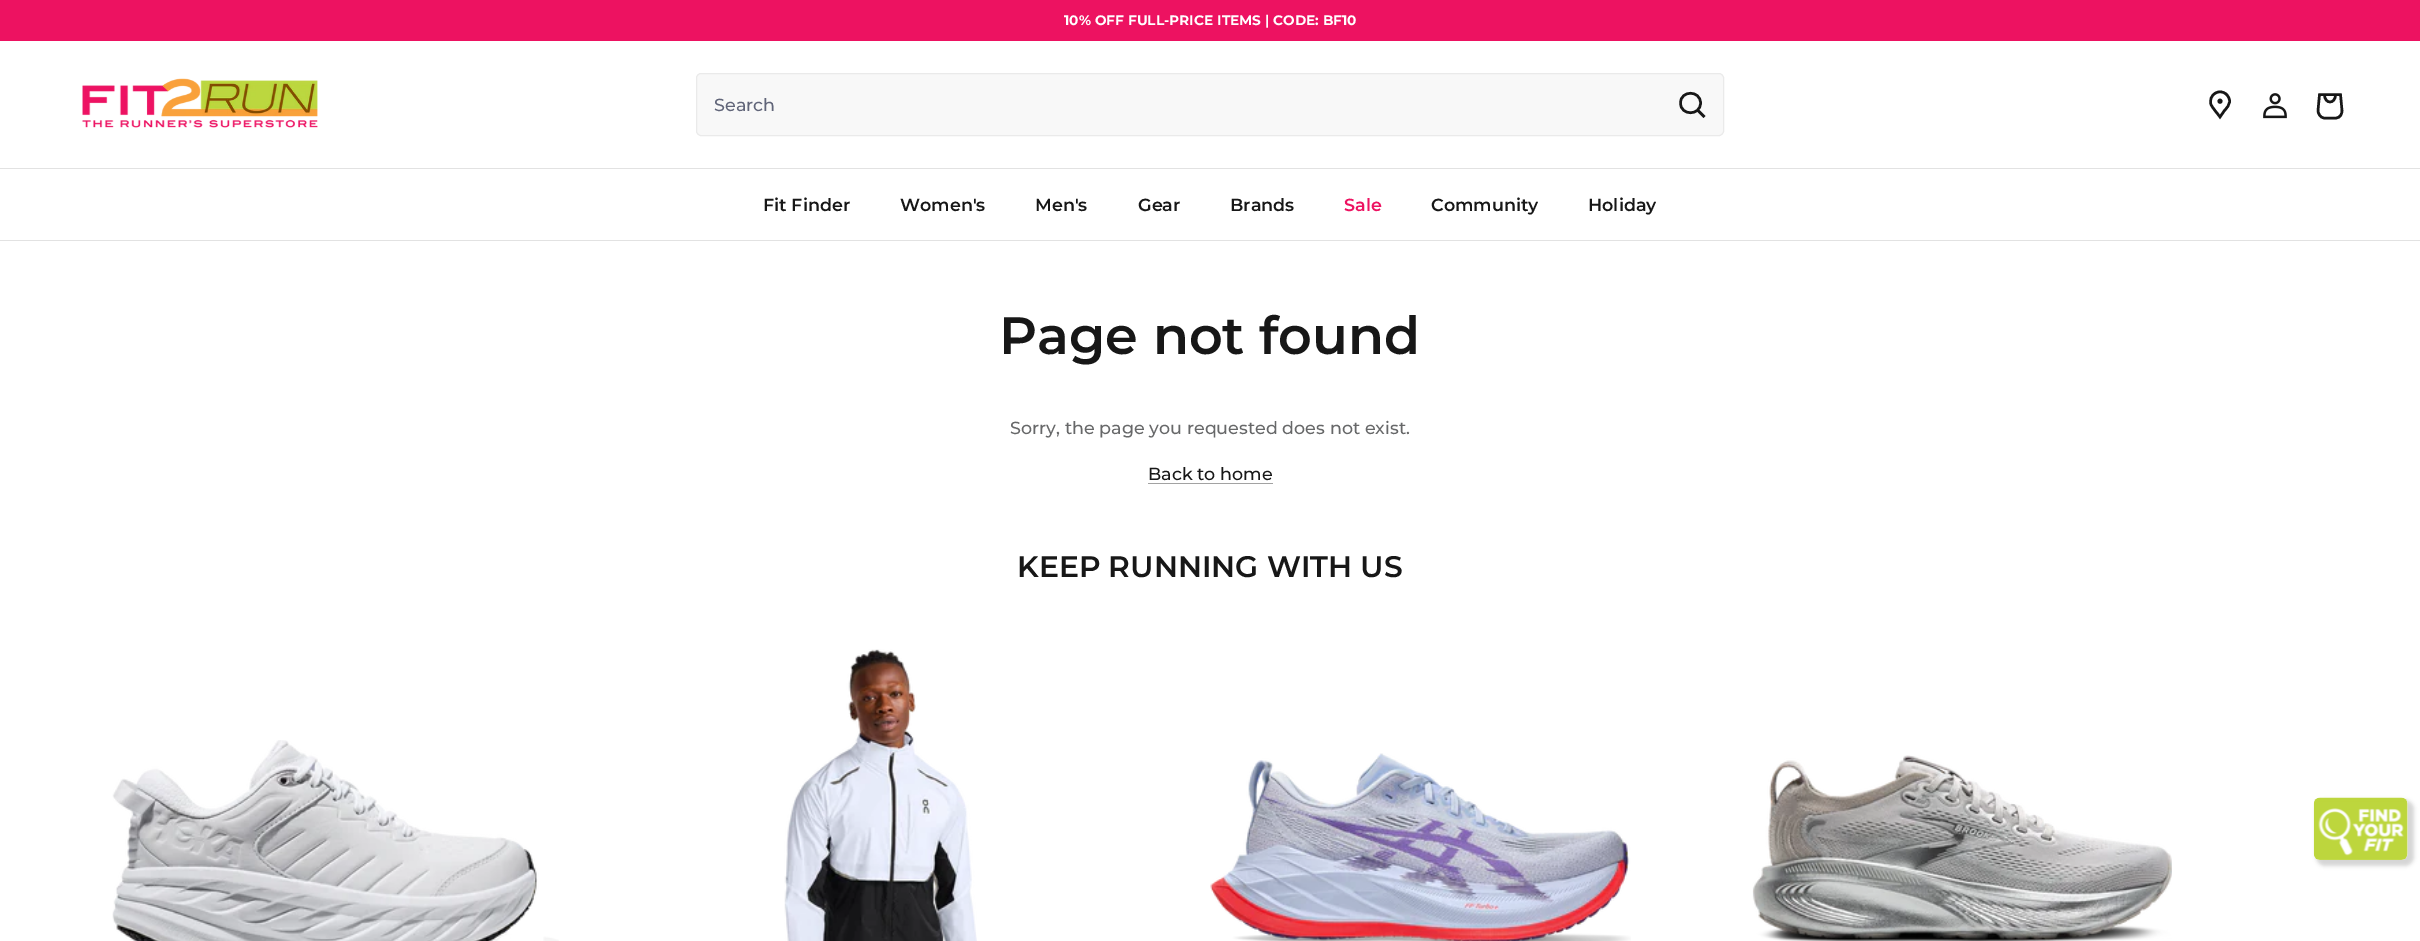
%!PS
<< /PageSize [2420 941] /PageUsesTransparency true >> setpagedevice
/mt/moveto load def
/li/lineto load def
/ct/curveto load def
/cp/closepath load def
/fl/fill load def
/st/stroke load def
/gs/gsave load def
/gr/grestore load def
/lw/setlinewidth load def
/co { dup -16 bitshift 255 div exch dup -8 bitshift 255 and 255 div exch 255 and 255 div setrgbcolor } def
/fn { [ exch dup neg 0 0 3 -1 roll 0 0 ] selectfont } def
/tx { co fn moveto show } def
/bx { co rectfill } def
/al { dup .setfillconstantalpha .setstrokeconstantalpha } def
/ci { newpath 0 360 arc closepath } def
/rr { 5 dict begin { /r /h /w /y /x } { exch def } forall
  x r add y moveto x w add y 2 copy h add r arct x w add y h add x 1 index r arct
  x y h add x y r arct x y 2 copy exch w add exch r arct closepath end } def
/sh { 12 dict begin { /a /b /q /h /w /y /x } { exch def } forall gsave /was 0 def
  9 -2 -9 { dup b mul 4 div /e exch def 1 sub .425 mul 2.718 exch exp 1 add a .99 .min exch div /now exch def
    1 1 now sub 1 was sub div sub al /was now def
    w h .min e 2 mul add 0 gt { x e sub y e sub w e 2 mul add h e 2 mul add
      q e add b .6 mul add w h .min 2 div e add .min 0 .max rr fill } if } for grestore end } def
/im { 5 dict begin { /h /w /y /x /name } { exch def } forall
  gsave x y translate w h scale
  w h 8 [w 0 0 h 0 0] name (r) file false 3 colorimage grestore end } def
0 .pushpdf14devicefilter
0 941 translate 1 -1 scale
4 setmiterlimit
0 0 2420 941 16#FFFFFF bx
0 0 2420 41 16#ED1261 bx
0 168 2420 1 16#E2E2E2 bx
(media/1.raw) 82 78 236 50 im
16#F8F8F8 co
696.5 73.5 1027 62 4.5 rr gs fl gr
16#EAEAEA co
st
16#171717 co
2.5 lw
1704.5 117 mt 1698 110.5 li 1700.5 103 mt 1700.5 116 1680.5 116 1680.5 103 ct 1680.5 90 1700.5 90 1700.5 103 ct cp st
2229.5 101 mt 2229.5 105 2227 108 2224.5 110.5 ct 2220 117 li 2217.5 113.5 2212.5 108 2211 104.5 ct 2208 95 2219.5 87.5 2226.5 94.5 ct 2228.5 96.5 2229.5 98.5 2229.5 101 ct cp st
2220 101.2 2.5 ci fl
(media/2.raw) 2263 93 24 26 im
2324.5 94.5 mt 2324.5 104.5 2335.5 104.5 2335.5 94.5 ct 2319.5 94.5 mt 2340.5 94.5 li 2342 110.5 li 2342 113 2341 118 2335.5 118 ct 2324.5 118 li 2320 118 2318 113 2318 110.5 ct cp st
0 240 2420 1 16#E2E2E2 bx
1148 483 125 1 16#A2A2A2 bx
(media/3.raw) 112 740 447 201 im
(media/4.raw) 784 649 193 292 im
(media/5.raw) 1210 753 421 188 im
(media/6.raw) 1752 755 420 186 im
16#9B9B9B co
2316 800 98 66 9 2 .42 sh
(media/7.raw) 2313 797 95 63 im
(10% OFF FULL-PRICE ITEMS | CODE: BF10) 1064 25 /Montserrat-Bold 13.75 16#FFFFFF tx
(Search) 714 111 /Montserrat-Medium 17.5 16#616579 tx
(Fit Finder) 763 211 /Montserrat-SemiBold 17.5 16#171717 tx
(Women's) 900 211 /Montserrat-SemiBold 17.5 16#171717 tx
(Men's) 1035 211 /Montserrat-SemiBold 17.5 16#171717 tx
(Gear) 1138 211 /Montserrat-SemiBold 17.5 16#171717 tx
(Brands) 1230 211 /Montserrat-SemiBold 17.5 16#171717 tx
(Sale) 1344 211 /Montserrat-SemiBold 17.5 16#ED1261 tx
(Community) 1431 211 /Montserrat-SemiBold 17.5 16#171717 tx
(Holiday) 1588 211 /Montserrat-SemiBold 17.5 16#171717 tx
(Page not found) 999 354 /Montserrat-SemiBold 52.5 16#171717 tx
(Sorry, the page you requested does not exist.) 1010 434 /Montserrat-Medium 17.5 16#676869 tx
(Back to home) 1148 480 /Montserrat-Medium 17.5 16#171717 tx
(KEEP RUNNING WITH US) 1017 577 /Montserrat-SemiBold 29.75 16#171717 tx
.poppdf14devicefilter showpage
